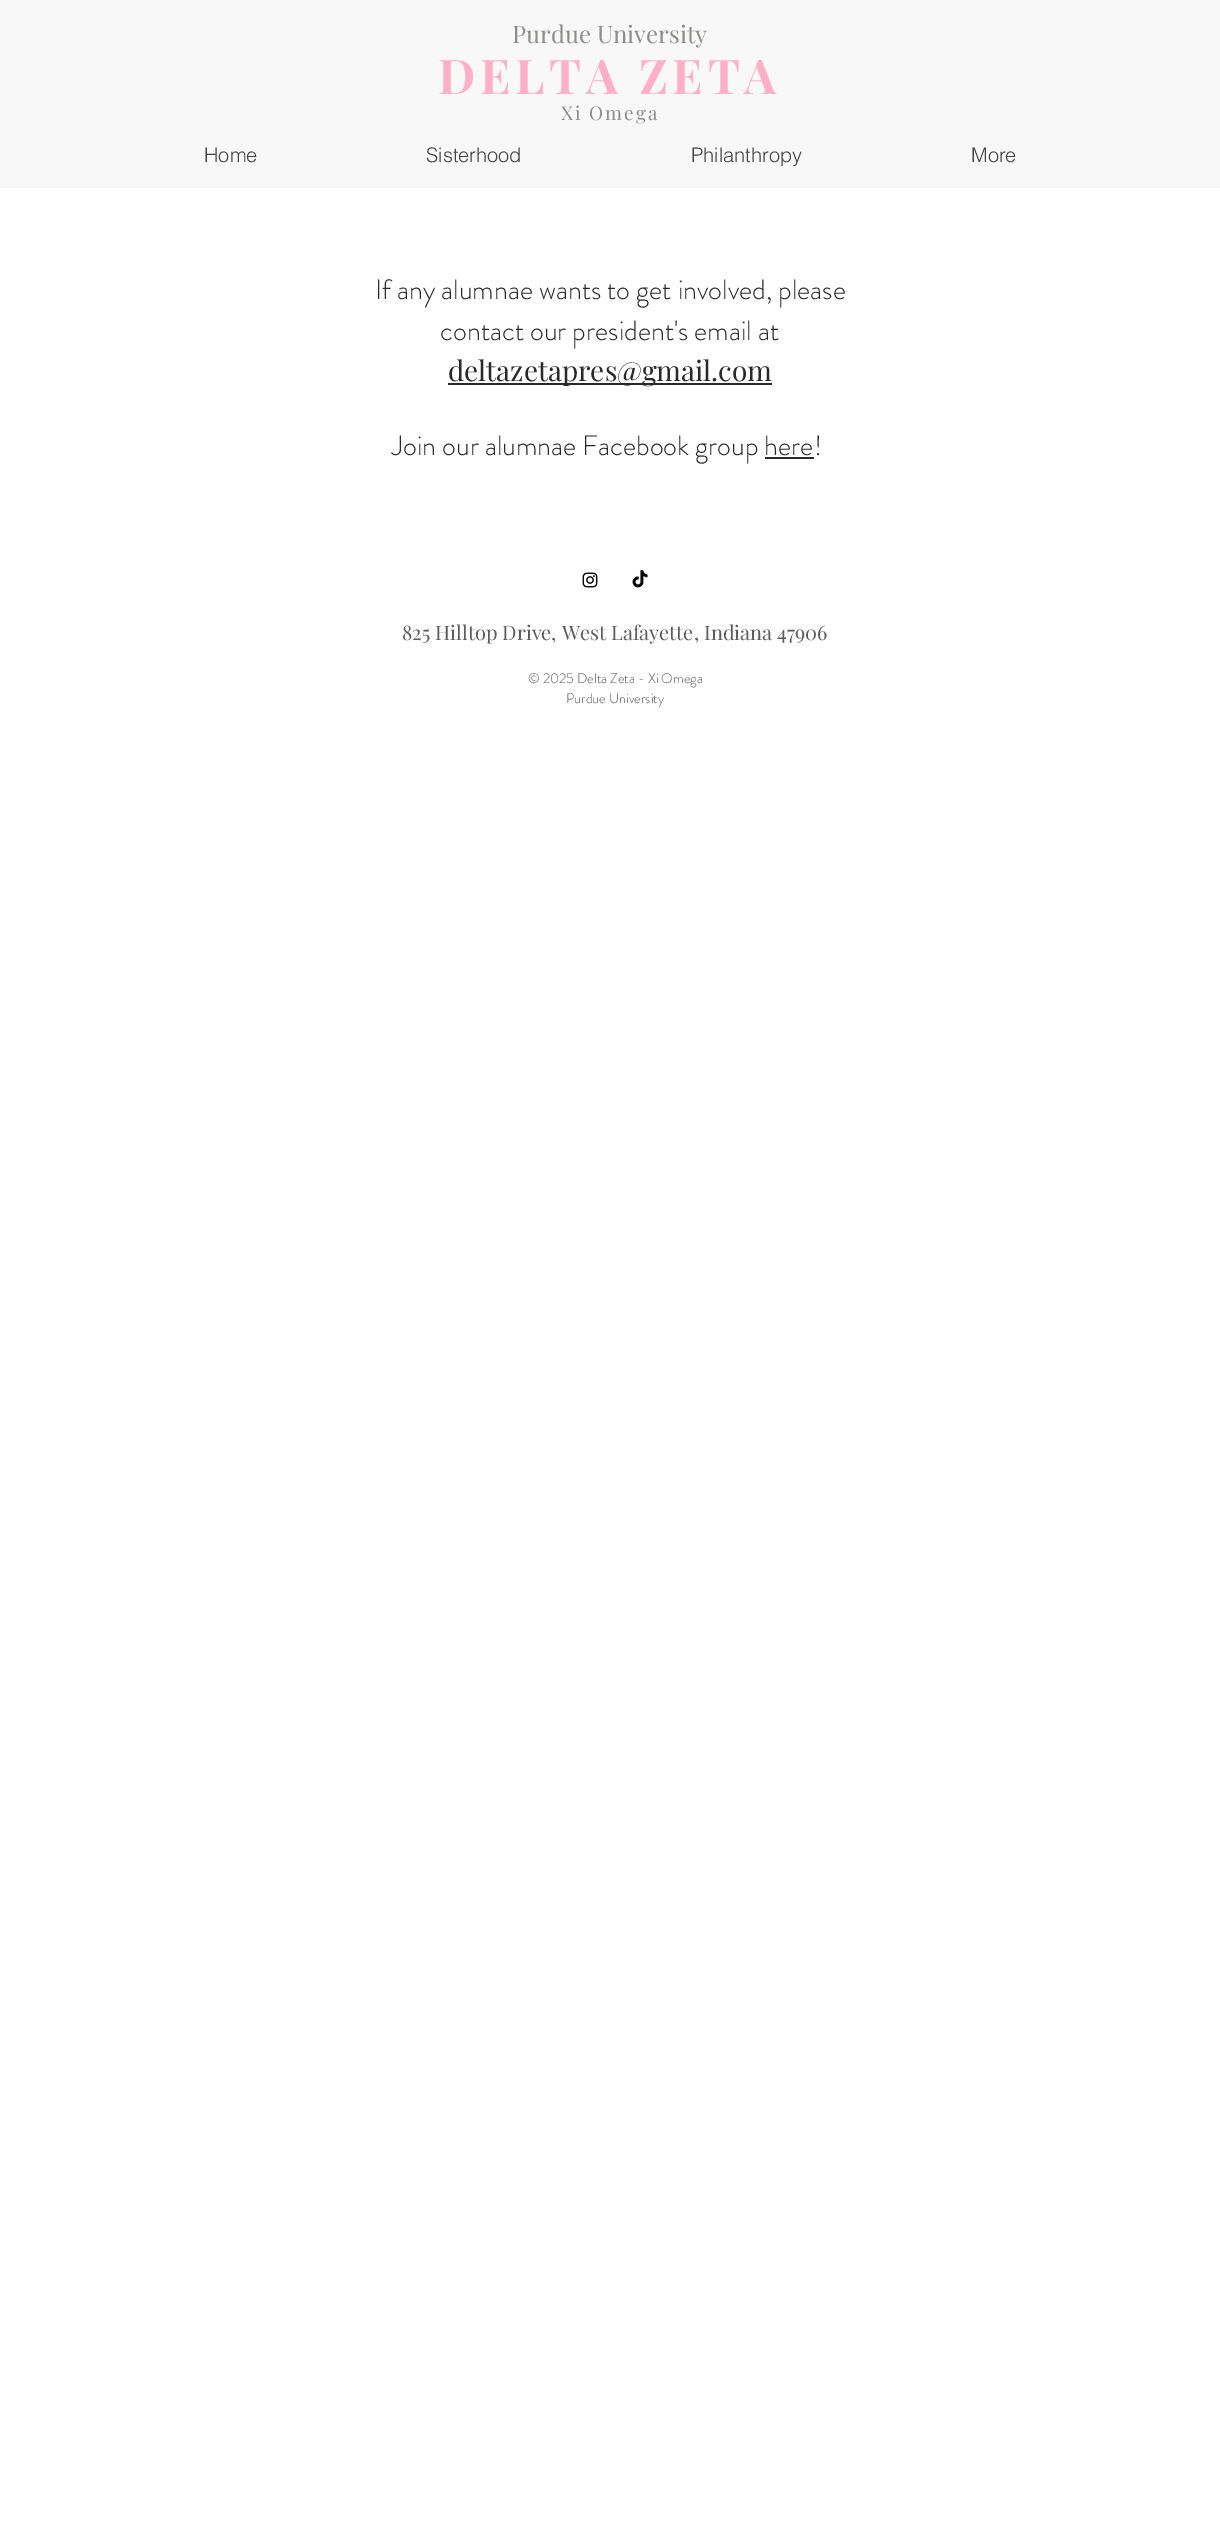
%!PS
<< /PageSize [1220 2521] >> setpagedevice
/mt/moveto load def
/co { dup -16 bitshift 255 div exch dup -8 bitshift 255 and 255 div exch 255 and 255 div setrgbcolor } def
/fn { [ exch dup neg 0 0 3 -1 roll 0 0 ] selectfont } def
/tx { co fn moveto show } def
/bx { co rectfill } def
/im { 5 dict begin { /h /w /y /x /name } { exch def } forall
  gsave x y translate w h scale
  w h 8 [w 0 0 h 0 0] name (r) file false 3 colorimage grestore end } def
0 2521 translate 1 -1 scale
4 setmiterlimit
0 0 1220 2521 16#FFFFFF bx
0 0 1220 188 16#F8F8F8 bx
448 383 324 2 16#292929 bx
765 457 49 2 16#292929 bx
(media/1.raw) 582 572 16 16 im
(media/2.raw) 632 570 16 18 im
(Purdue University) 512 43 /PlayfairDisplay-Regular 24 16#8D8D8B tx
/PlayfairDisplay-Bold 48 fn
16#FFB0C8 co
438 94 mt 4.75 0 (DELTA ZETA) ashow
/PlayfairDisplay-Regular 19 fn
16#8D8D8B co
561 120 mt 2 0 (Xi Omega) ashow
(Home) 204 162 /helvetica-Light 20 16#444444 tx
(Sisterhood) 426 162 /helvetica-Light 20 16#444444 tx
(Philanthropy) 691 162 /helvetica-Light 20 16#444444 tx
(More) 971 162 /helvetica-Light 20 16#444444 tx
(If any alumnae wants to get involved, please) 375 299 /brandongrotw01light-Light 28 16#292929 tx
(contact our president's email at) 440 340 /brandongrotw01light-Light 28 16#292929 tx
(deltazetapres@gmail.com) 448 381 /PlayfairDisplay-Regular 28 16#292929 tx
(Join our alumnae Facebook group here!) 392 455 /brandongrotw01light-Light 28 16#292929 tx
(825 Hilltop Drive, West Lafayette, Indiana 47906) 402 640 /PlayfairDisplay-Regular 20 16#5D5B5B tx
(© 2025 Delta Zeta - Xi Omega) 528 683 /brandongrotw01light-Light 14 16#5D5B5B tx
(Purdue University) 566 703 /brandongrotw01light-Light 14 16#5D5B5B tx
showpage
